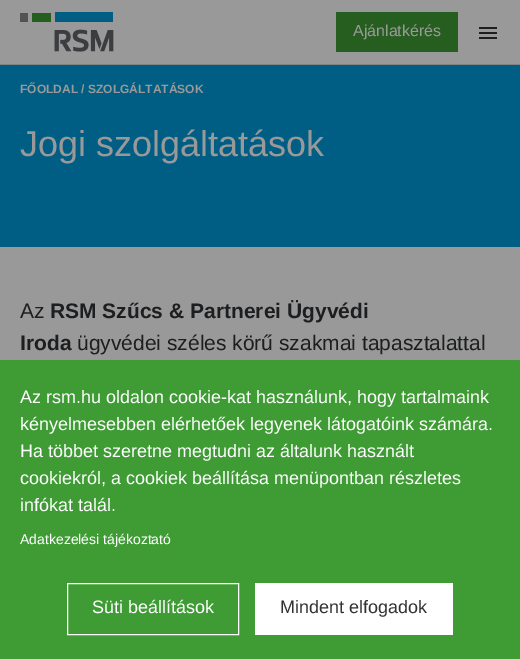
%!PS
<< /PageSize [520 659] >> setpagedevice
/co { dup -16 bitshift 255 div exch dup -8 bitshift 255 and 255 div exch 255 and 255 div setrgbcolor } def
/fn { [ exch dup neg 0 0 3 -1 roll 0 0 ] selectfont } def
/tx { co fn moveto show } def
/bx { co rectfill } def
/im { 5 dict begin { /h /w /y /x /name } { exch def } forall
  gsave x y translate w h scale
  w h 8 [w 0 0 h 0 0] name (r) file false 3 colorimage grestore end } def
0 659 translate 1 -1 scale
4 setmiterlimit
0 0 520 659 16#999999 bx
0 64 520 1 16#818383 bx
(media/1.raw) 20 12 94 40 im
336 12 122 40 16#265E20 bx
479 27 18 2 16#1D1E20 bx
479 32 18 2 16#1D1E20 bx
479 37 18 2 16#1D1E20 bx
0 65 520 182 16#005E85 bx
0 360 520 299 16#3F9C35 bx
16#FFFFFF co
67.5 583.5 171 51 rectstroke
255 583 198 52 16#FFFFFF bx
(Ajánlatkérés) 353 36 /LiberationSans-Regular 16 16#999999 tx
(FŐOLDAL / SZOLGÁLTATÁSOK) 20 93 /LiberationSans-Bold 12 16#999999 tx
(Jogi szolgáltatások) 20 156 /LiberationSans-Regular 36 16#999999 tx
(Az) 20 318 /LiberationSans-Regular 21 16#1D1E20 tx
(RSM Szűcs & Partnerei Ügyvédi) 50 318 /LiberationSans-Bold 21 16#1D1E20 tx
(Iroda) 20 350 /LiberationSans-Bold 21 16#1D1E20 tx
(ügyvédei széles körű szakmai tapasztalattal) 77 350 /LiberationSans-Regular 21 16#1D1E20 tx
(Az rsm.hu oldalon cookie-kat használunk, hogy tartalmaink) 20 403 /LiberationSans-Regular 18 16#FFFFFF tx
(kényelmesebben elérhetőek legyenek látogatóink számára.) 20 430 /LiberationSans-Regular 18 16#FFFFFF tx
(Ha többet szeretne megtudni az általunk használt) 20 457 /LiberationSans-Regular 18 16#FFFFFF tx
(cookiekról, a cookiek beállítása menüpontban részletes) 20 484 /LiberationSans-Regular 18 16#FFFFFF tx
(infókat talál.) 20 511 /LiberationSans-Regular 18 16#FFFFFF tx
(Adatkezelési tájékoztató) 20 544 /LiberationSans-Regular 14 16#FFFFFF tx
(Süti beállítások) 92 613 /LiberationSans-Regular 18 16#FFFFFF tx
(Mindent elfogadok) 280 613 /LiberationSans-Regular 18 16#313235 tx
showpage
